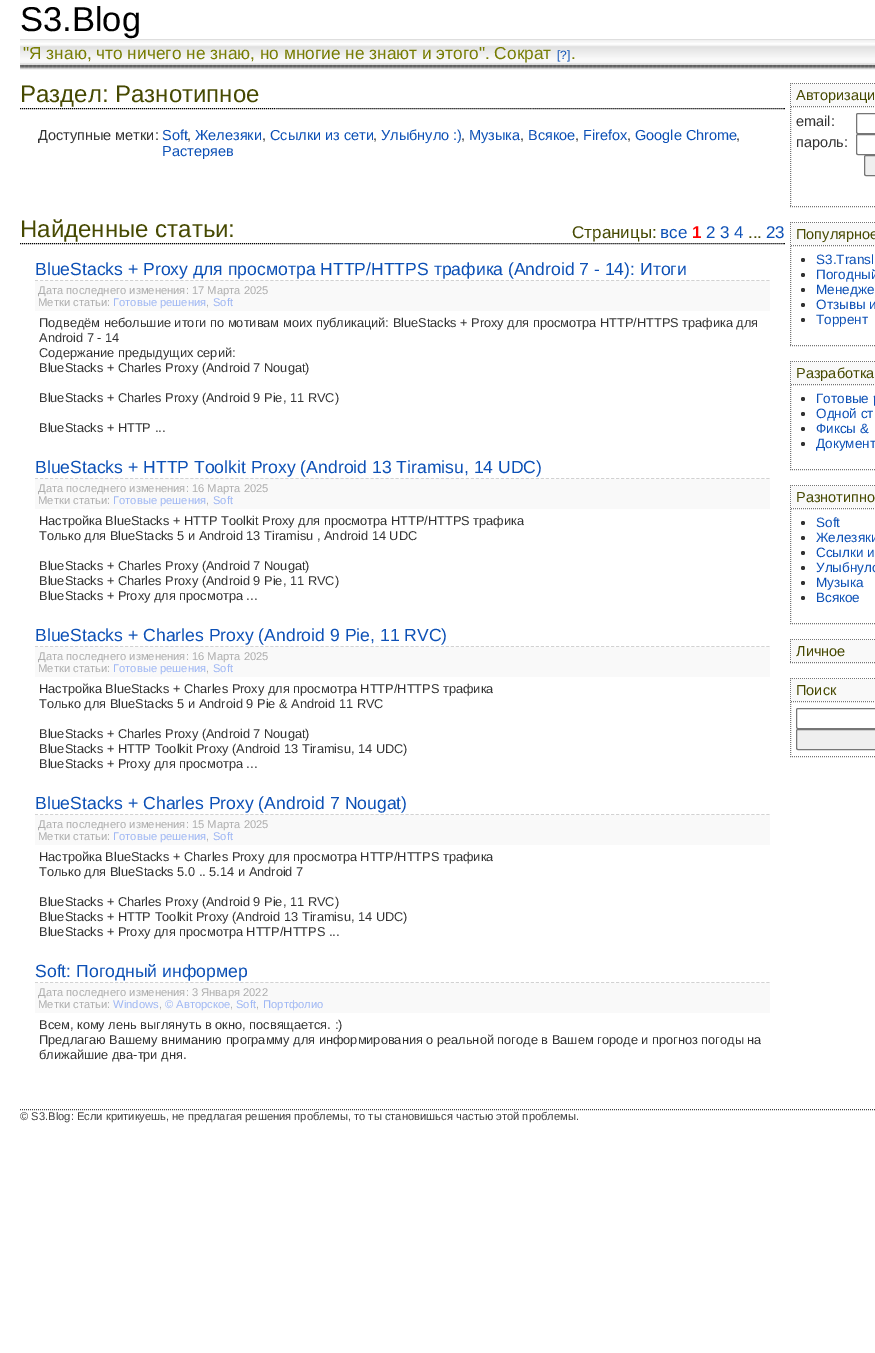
%!PS
<< /PageSize [875 1353] >> setpagedevice
/mt/moveto load def
/li/lineto load def
/fl/fill load def
/st/stroke load def
/gs/gsave load def
/gr/grestore load def
/co { dup -16 bitshift 255 div exch dup -8 bitshift 255 and 255 div exch 255 and 255 div setrgbcolor } def
/fn { [ exch dup neg 0 0 3 -1 roll 0 0 ] selectfont } def
/tx { co fn moveto show } def
/bx { co rectfill } def
/ci { newpath 0 360 arc closepath } def
/rr { 5 dict begin { /r /h /w /y /x } { exch def } forall
  x r add y moveto x w add y 2 copy h add r arct x w add y h add x 1 index r arct
  x y h add x y r arct x y 2 copy exch w add exch r arct closepath end } def
/im { 5 dict begin { /h /w /y /x /name } { exch def } forall
  gsave x y translate w h scale
  w h 8 [w 0 0 h 0 0] name (r) file false 3 colorimage grestore end } def
0 1353 translate 1 -1 scale
4 setmiterlimit
0 0 875 1353 16#FFFFFF bx
20 69 855 1 16#F3F3F3 bx
(media/1.raw) 20 39 855 30 im
16#000000 co
[1 1] 0 setdash
20 108.5 mt 785 108.5 li st
20 243.5 mt 785 243.5 li st
16#D2D2D2 co
[3 2.01] 0 setdash
35 280.5 mt 770 280.5 li st
35 281 735 30 16#F9F9F9 bx
16#D2D2D2 co
35 478.5 mt 770 478.5 li st
35 479 735 30 16#F9F9F9 bx
16#D2D2D2 co
35 646.5 mt 770 646.5 li st
35 647 735 30 16#F9F9F9 bx
16#D2D2D2 co
35 814.5 mt 770 814.5 li st
35 815 735 30 16#F9F9F9 bx
16#D2D2D2 co
35 982.5 mt 770 982.5 li st
35 983 735 30 16#F9F9F9 bx
16#757575 co
[1 1] 0 setdash
790 83.5 mt 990 83.5 li st
790 206.5 mt 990 206.5 li st
790.5 83 mt 790.5 207 li st
791 84 84 22 16#F9F9F9 bx
16#757575 co
791 106.5 mt 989 106.5 li st
16#767676 co
[] 0 setdash
856.5 113.5 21 20 1.5 rr st
856.5 134.5 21 20 1.5 rr st
16#EFEFEF co
864.5 155.5 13 20 1.5 rr gs fl gr
16#767676 co
st
16#757575 co
[1 1] 0 setdash
790 222.5 mt 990 222.5 li st
790 345.5 mt 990 345.5 li st
790.5 222 mt 790.5 346 li st
791 223 84 22 16#F9F9F9 bx
16#757575 co
791 245.5 mt 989 245.5 li st
16#333333 co
803 260 2 ci fl
803 275 2 ci fl
803 290 2 ci fl
803 305 2 ci fl
803 320 2 ci fl
16#757575 co
790 361.5 mt 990 361.5 li st
790 469.5 mt 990 469.5 li st
790.5 361 mt 790.5 470 li st
791 362 84 22 16#F9F9F9 bx
16#757575 co
791 384.5 mt 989 384.5 li st
16#333333 co
803 399 2 ci fl
803 414 2 ci fl
803 429 2 ci fl
803 444 2 ci fl
16#757575 co
790 485.5 mt 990 485.5 li st
790 623.5 mt 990 623.5 li st
790.5 485 mt 790.5 624 li st
791 486 84 22 16#F9F9F9 bx
16#757575 co
791 508.5 mt 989 508.5 li st
16#333333 co
803 523 2 ci fl
803 538 2 ci fl
803 553 2 ci fl
803 568 2 ci fl
803 583 2 ci fl
803 598 2 ci fl
16#757575 co
790 639.5 mt 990 639.5 li st
790 662.5 mt 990 662.5 li st
790.5 639 mt 790.5 663 li st
791 640 84 22 16#F9F9F9 bx
16#757575 co
790 678.5 mt 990 678.5 li st
790 756.5 mt 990 756.5 li st
790.5 678 mt 790.5 757 li st
791 679 84 22 16#F9F9F9 bx
16#757575 co
791 701.5 mt 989 701.5 li st
16#767676 co
[] 0 setdash
796.5 708.5 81 20 1.5 rr st
16#EFEFEF co
796.5 729.5 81 20 1.5 rr gs fl gr
16#767676 co
st
16#404040 co
[1 1] 0 setdash
20 1109.5 mt 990 1109.5 li st
(S3.Blog) 20 31 /LiberationSans-Regular 34.5 16#000000 tx
("Я знаю, что ничего не знаю, но многие не знают и этого". Сократ) 23 59 /LiberationSans-Regular 17.3 16#767C01 tx
([?]) 557 59 /LiberationSans-Regular 12 16#0C50B6 tx
(.) 571 59 /LiberationSans-Regular 17.3 16#767C01 tx
(Раздел: Разнотипное) 20 102 /LiberationSans-Regular 24 16#464901 tx
(Доступные метки:) 38 140 /LiberationSans-Regular 14.5 16#333333 tx
(Soft) 162 140 /LiberationSans-Regular 14.5 16#0C50B6 tx
(,) 187 140 /LiberationSans-Regular 14.5 16#333333 tx
(Железяки) 195 140 /LiberationSans-Regular 14.5 16#0C50B6 tx
(,) 262 140 /LiberationSans-Regular 14.5 16#333333 tx
(Ссылки из сети) 270 140 /LiberationSans-Regular 14.5 16#0C50B6 tx
(,) 373 140 /LiberationSans-Regular 14.5 16#333333 tx
(Улыбнуло :\)) 381 140 /LiberationSans-Regular 14.5 16#0C50B6 tx
(,) 461 140 /LiberationSans-Regular 14.5 16#333333 tx
(Музыка) 469 140 /LiberationSans-Regular 14.5 16#0C50B6 tx
(,) 520 140 /LiberationSans-Regular 14.5 16#333333 tx
(Всякое) 528 140 /LiberationSans-Regular 14.5 16#0C50B6 tx
(,) 575 140 /LiberationSans-Regular 14.5 16#333333 tx
(Firefox) 583 140 /LiberationSans-Regular 14.5 16#0C50B6 tx
(,) 627 140 /LiberationSans-Regular 14.5 16#333333 tx
(Google Chrome) 635 140 /LiberationSans-Regular 14.5 16#0C50B6 tx
(,) 736 140 /LiberationSans-Regular 14.5 16#333333 tx
(Растеряев) 162 156 /LiberationSans-Regular 14.5 16#0C50B6 tx
(Найденные статьи:) 20 237 /LiberationSans-Regular 24 16#464901 tx
(Страницы:) 572 238 /LiberationSans-Regular 17 16#464901 tx
(все) 660 238 /LiberationSans-Regular 17 16#0C50B6 tx
(1) 692 238 /LiberationSans-Bold 17 16#FF0000 tx
(2 3 4) 706 238 /LiberationSans-Regular 17 16#0C50B6 tx
(...) 748 238 /LiberationSans-Regular 17 16#464901 tx
(23) 766 238 /LiberationSans-Regular 17 16#0C50B6 tx
(BlueStacks + Proxy для просмотра HTTP/HTTPS трафика \(Android 7 - 14\): Итоги) 35 275 /LiberationSans-Regular 17.6 16#0C50B6 tx
(Дата последнего изменения: 17 Марта 2025) 38 294 /LiberationSans-Regular 11.2 16#AEAEAE tx
(Метки статьи:) 38 306 /LiberationSans-Regular 11.2 16#AEAEAE tx
(Готовые решения) 113 306 /LiberationSans-Regular 11.2 16#9FB7F4 tx
(,) 206 306 /LiberationSans-Regular 11.2 16#AEAEAE tx
(Soft) 213 306 /LiberationSans-Regular 11.2 16#9FB7F4 tx
(Подведём небольшие итоги по мотивам моих публикаций: BlueStacks + Proxy для просмотра HTTP/HTTPS трафика для) 39 327 /LiberationSans-Regular 12.8 16#333333 tx
(Android 7 - 14) 39 342 /LiberationSans-Regular 12.8 16#333333 tx
(Содержание предыдущих серий:) 39 357 /LiberationSans-Regular 12.8 16#333333 tx
(BlueStacks + Charles Proxy \(Android 7 Nougat\)) 39 372 /LiberationSans-Regular 12.8 16#333333 tx
(BlueStacks + Charles Proxy \(Android 9 Pie, 11 RVC\)) 39 402 /LiberationSans-Regular 12.8 16#333333 tx
(BlueStacks + HTTP ...) 39 432 /LiberationSans-Regular 12.8 16#333333 tx
(BlueStacks + HTTP Toolkit Proxy \(Android 13 Tiramisu, 14 UDC\)) 35 473 /LiberationSans-Regular 17.6 16#0C50B6 tx
(Дата последнего изменения: 16 Марта 2025) 38 492 /LiberationSans-Regular 11.2 16#AEAEAE tx
(Метки статьи:) 38 504 /LiberationSans-Regular 11.2 16#AEAEAE tx
(Готовые решения) 113 504 /LiberationSans-Regular 11.2 16#9FB7F4 tx
(,) 206 504 /LiberationSans-Regular 11.2 16#AEAEAE tx
(Soft) 213 504 /LiberationSans-Regular 11.2 16#9FB7F4 tx
(Настройка BlueStacks + HTTP Toolkit Proxy для просмотра HTTP/HTTPS трафика) 39 525 /LiberationSans-Regular 12.8 16#333333 tx
(Только для BlueStacks 5 и Android 13 Tiramisu , Android 14 UDC) 39 540 /LiberationSans-Regular 12.8 16#333333 tx
(BlueStacks + Charles Proxy \(Android 7 Nougat\)) 39 570 /LiberationSans-Regular 12.8 16#333333 tx
(BlueStacks + Charles Proxy \(Android 9 Pie, 11 RVC\)) 39 585 /LiberationSans-Regular 12.8 16#333333 tx
(BlueStacks + Proxy для просмотра ...) 39 600 /LiberationSans-Regular 12.8 16#333333 tx
(BlueStacks + Charles Proxy \(Android 9 Pie, 11 RVC\)) 35 641 /LiberationSans-Regular 17.6 16#0C50B6 tx
(Дата последнего изменения: 16 Марта 2025) 38 660 /LiberationSans-Regular 11.2 16#AEAEAE tx
(Метки статьи:) 38 672 /LiberationSans-Regular 11.2 16#AEAEAE tx
(Готовые решения) 113 672 /LiberationSans-Regular 11.2 16#9FB7F4 tx
(,) 206 672 /LiberationSans-Regular 11.2 16#AEAEAE tx
(Soft) 213 672 /LiberationSans-Regular 11.2 16#9FB7F4 tx
(Настройка BlueStacks + Charles Proxy для просмотра HTTP/HTTPS трафика) 39 693 /LiberationSans-Regular 12.8 16#333333 tx
(Только для BlueStacks 5 и Android 9 Pie & Android 11 RVC) 39 708 /LiberationSans-Regular 12.8 16#333333 tx
(BlueStacks + Charles Proxy \(Android 7 Nougat\)) 39 738 /LiberationSans-Regular 12.8 16#333333 tx
(BlueStacks + HTTP Toolkit Proxy \(Android 13 Tiramisu, 14 UDC\)) 39 753 /LiberationSans-Regular 12.8 16#333333 tx
(BlueStacks + Proxy для просмотра ...) 39 768 /LiberationSans-Regular 12.8 16#333333 tx
(BlueStacks + Charles Proxy \(Android 7 Nougat\)) 35 809 /LiberationSans-Regular 17.6 16#0C50B6 tx
(Дата последнего изменения: 15 Марта 2025) 38 828 /LiberationSans-Regular 11.2 16#AEAEAE tx
(Метки статьи:) 38 840 /LiberationSans-Regular 11.2 16#AEAEAE tx
(Готовые решения) 113 840 /LiberationSans-Regular 11.2 16#9FB7F4 tx
(,) 206 840 /LiberationSans-Regular 11.2 16#AEAEAE tx
(Soft) 213 840 /LiberationSans-Regular 11.2 16#9FB7F4 tx
(Настройка BlueStacks + Charles Proxy для просмотра HTTP/HTTPS трафика) 39 861 /LiberationSans-Regular 12.8 16#333333 tx
(Только для BlueStacks 5.0 .. 5.14 и Android 7) 39 876 /LiberationSans-Regular 12.8 16#333333 tx
(BlueStacks + Charles Proxy \(Android 9 Pie, 11 RVC\)) 39 906 /LiberationSans-Regular 12.8 16#333333 tx
(BlueStacks + HTTP Toolkit Proxy \(Android 13 Tiramisu, 14 UDC\)) 39 921 /LiberationSans-Regular 12.8 16#333333 tx
(BlueStacks + Proxy для просмотра HTTP/HTTPS ...) 39 936 /LiberationSans-Regular 12.8 16#333333 tx
(Soft: Погодный информер) 35 977 /LiberationSans-Regular 17.6 16#0C50B6 tx
(Дата последнего изменения: 3 Января 2022) 38 996 /LiberationSans-Regular 11.2 16#AEAEAE tx
(Метки статьи:) 38 1008 /LiberationSans-Regular 11.2 16#AEAEAE tx
(Windows) 113 1008 /LiberationSans-Regular 11.2 16#9FB7F4 tx
(,) 159 1008 /LiberationSans-Regular 11.2 16#AEAEAE tx
(© Авторское) 165 1008 /LiberationSans-Regular 11.2 16#9FB7F4 tx
(,) 230 1008 /LiberationSans-Regular 11.2 16#AEAEAE tx
(Soft) 236 1008 /LiberationSans-Regular 11.2 16#9FB7F4 tx
(,) 256 1008 /LiberationSans-Regular 11.2 16#AEAEAE tx
(Портфолио) 263 1008 /LiberationSans-Regular 11.2 16#9FB7F4 tx
(Всем, кому лень выглянуть в окно, посвящается. :\)) 39 1029 /LiberationSans-Regular 12.8 16#333333 tx
(Предлагаю Вашему вниманию программу для информирования о реальной погоде в Вашем городе и прогноз погоды на) 39 1044 /LiberationSans-Regular 12.8 16#333333 tx
(ближайшие два-три дня.) 39 1059 /LiberationSans-Regular 12.8 16#333333 tx
(Авторизаци) 796 100 /LiberationSans-Regular 14.5 16#464901 tx
(email:) 796 126 /LiberationSans-Regular 14.5 16#333333 tx
(пароль:) 796 147 /LiberationSans-Regular 14.5 16#333333 tx
(Популярное) 796 239 /LiberationSans-Regular 14.5 16#464901 tx
(S3.Transl) 816 264 /LiberationSans-Regular 13.5 16#0C50B6 tx
(Погодный) 816 279 /LiberationSans-Regular 13.5 16#0C50B6 tx
(Менедже) 816 294 /LiberationSans-Regular 13.5 16#0C50B6 tx
(Отзывы и) 816 309 /LiberationSans-Regular 13.5 16#0C50B6 tx
(Торрент) 816 324 /LiberationSans-Regular 13.5 16#0C50B6 tx
(Разработка) 796 378 /LiberationSans-Regular 14.5 16#464901 tx
(Готовые р) 816 403 /LiberationSans-Regular 13.5 16#0C50B6 tx
(Одной ст) 816 418 /LiberationSans-Regular 13.5 16#0C50B6 tx
(Фиксы &) 816 433 /LiberationSans-Regular 13.5 16#0C50B6 tx
(Документ) 816 448 /LiberationSans-Regular 13.5 16#0C50B6 tx
(Разнотипно) 796 502 /LiberationSans-Regular 14.5 16#464901 tx
(Soft) 816 527 /LiberationSans-Regular 13.5 16#0C50B6 tx
(Железяки) 816 542 /LiberationSans-Regular 13.5 16#0C50B6 tx
(Ссылки и) 816 557 /LiberationSans-Regular 13.5 16#0C50B6 tx
(Улыбнуло) 816 572 /LiberationSans-Regular 13.5 16#0C50B6 tx
(Музыка) 816 587 /LiberationSans-Regular 13.5 16#0C50B6 tx
(Всякое) 816 602 /LiberationSans-Regular 13.5 16#0C50B6 tx
(Личное) 796 656 /LiberationSans-Regular 14.5 16#464901 tx
(Поиск) 796 695 /LiberationSans-Regular 14.5 16#464901 tx
(© S3.Blog: Если критикуешь, не предлагая решения проблемы, то ты становишься частью этой проблемы.) 20 1120 /LiberationSans-Regular 11.2 16#404040 tx
showpage
